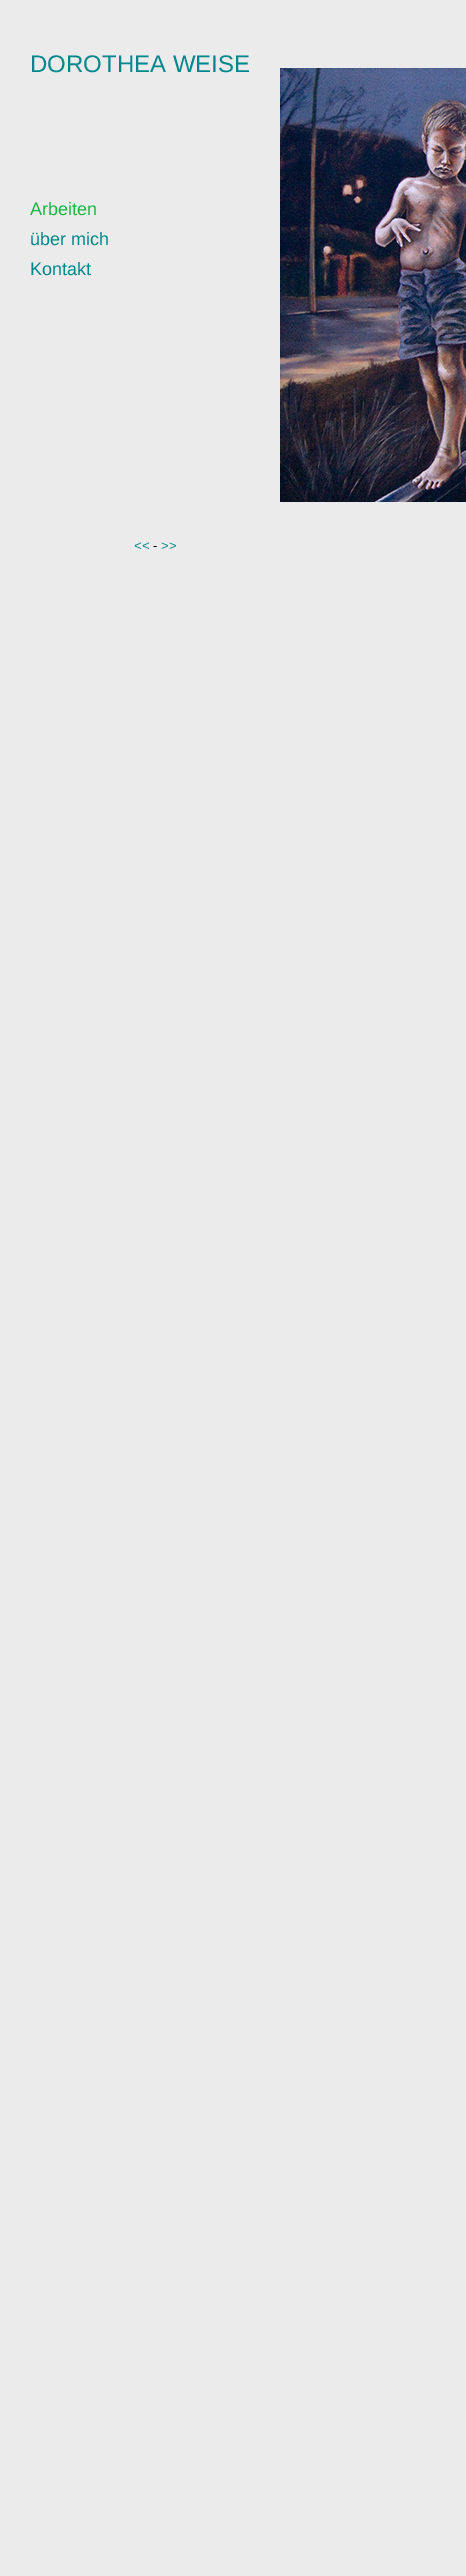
%!PS
<< /PageSize [466 2576] >> setpagedevice
/co { dup -16 bitshift 255 div exch dup -8 bitshift 255 and 255 div exch 255 and 255 div setrgbcolor } def
/fn { [ exch dup neg 0 0 3 -1 roll 0 0 ] selectfont } def
/tx { co fn moveto show } def
/bx { co rectfill } def
/im { 5 dict begin { /h /w /y /x /name } { exch def } forall
  gsave x y translate w h scale
  w h 8 [w 0 0 h 0 0] name (r) file false 3 colorimage grestore end } def
0 2576 translate 1 -1 scale
4 setmiterlimit
0 0 466 2576 16#EBEBEB bx
(media/1.raw) 280 68 186 434 im
(DOROTHEA WEISE) 30 72 /LiberationSans-Regular 24 16#00878C tx
(Arbeiten) 30 215 /LiberationSans-Regular 18 16#1AB643 tx
(über mich) 30 245 /LiberationSans-Regular 18 16#00878C tx
(Kontakt) 30 275 /LiberationSans-Regular 18 16#00878C tx
(<<) 134 550 /LiberationSans-Regular 13 16#00878C tx
(-) 153 550 /LiberationSans-Regular 13 16#000000 tx
(>>) 161 550 /LiberationSans-Regular 13 16#00878C tx
showpage
